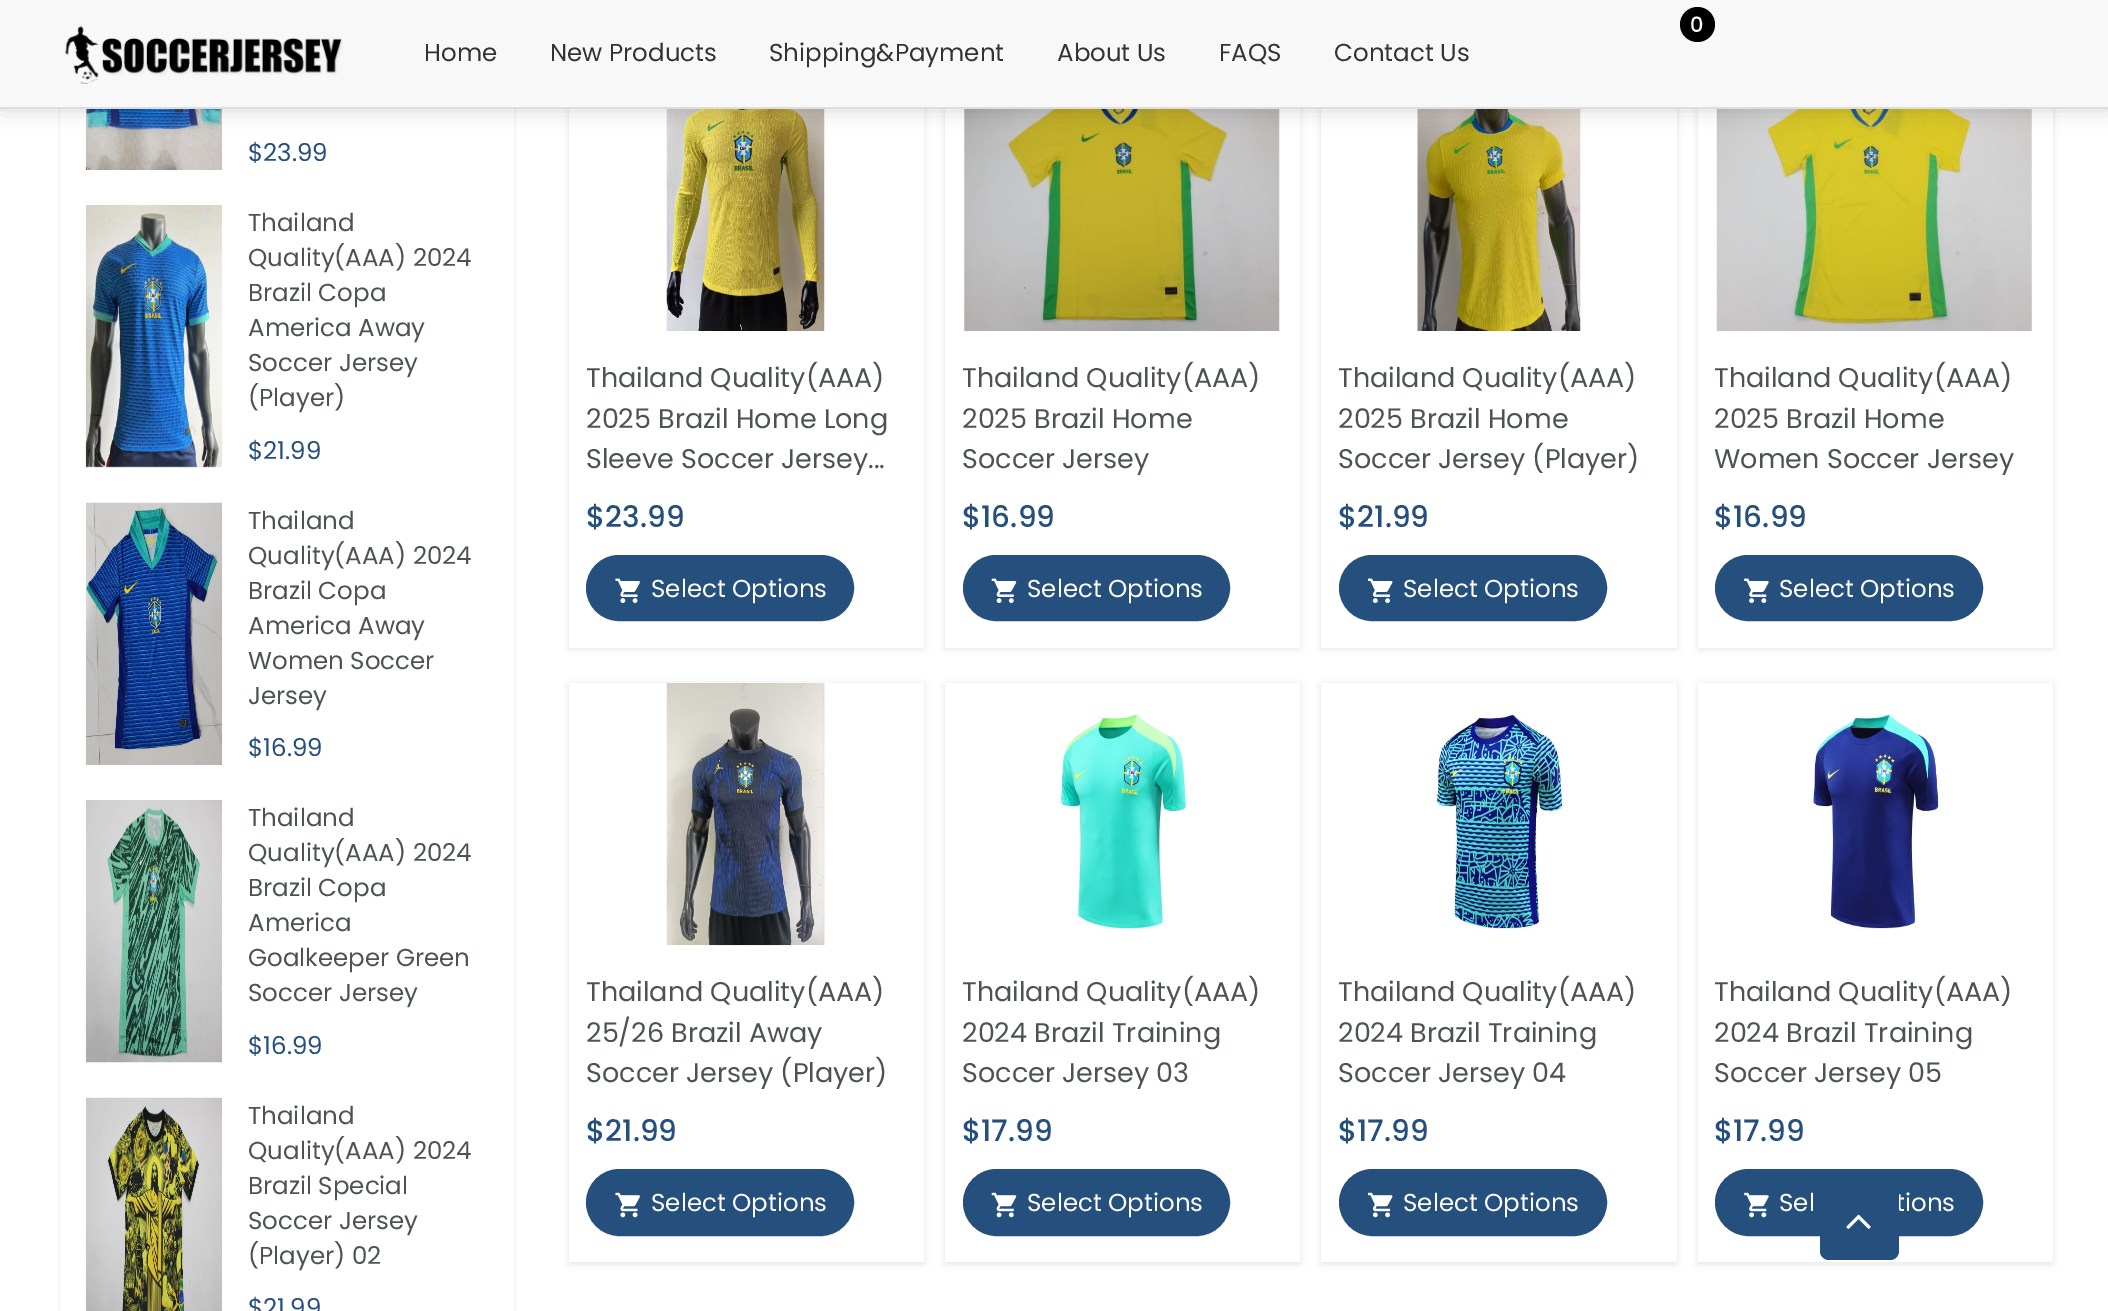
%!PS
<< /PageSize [2108 1311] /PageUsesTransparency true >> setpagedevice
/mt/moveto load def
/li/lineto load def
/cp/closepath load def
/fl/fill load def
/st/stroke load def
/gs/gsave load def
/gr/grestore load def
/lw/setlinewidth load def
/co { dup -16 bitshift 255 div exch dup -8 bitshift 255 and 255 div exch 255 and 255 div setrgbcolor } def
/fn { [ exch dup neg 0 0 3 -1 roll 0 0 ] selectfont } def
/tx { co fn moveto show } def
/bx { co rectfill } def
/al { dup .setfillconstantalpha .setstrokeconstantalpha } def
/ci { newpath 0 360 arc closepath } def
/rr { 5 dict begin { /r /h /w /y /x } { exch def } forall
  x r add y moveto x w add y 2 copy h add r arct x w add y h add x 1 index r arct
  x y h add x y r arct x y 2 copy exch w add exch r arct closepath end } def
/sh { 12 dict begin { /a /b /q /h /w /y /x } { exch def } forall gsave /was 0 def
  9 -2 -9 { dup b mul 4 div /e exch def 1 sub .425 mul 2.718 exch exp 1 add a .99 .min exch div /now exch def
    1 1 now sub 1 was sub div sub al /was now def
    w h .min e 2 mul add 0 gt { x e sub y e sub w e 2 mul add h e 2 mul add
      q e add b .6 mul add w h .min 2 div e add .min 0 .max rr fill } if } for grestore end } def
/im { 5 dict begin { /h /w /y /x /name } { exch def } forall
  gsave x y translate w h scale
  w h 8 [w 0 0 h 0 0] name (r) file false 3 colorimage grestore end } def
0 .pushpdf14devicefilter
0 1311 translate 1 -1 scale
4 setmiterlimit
0 0 2108 1311 16#FFFFFF bx
16#F5F5F5 co
2 lw
59 -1 456 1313 rectstroke
(media/2.raw) 85 109 138 61 im
gs
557 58 mt 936 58 li 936 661 li 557 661 li cp 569 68 mt 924 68 li 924 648 li 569 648 li cp eoclip newpath
16#000000 co
569 70 355 579 0 3.5 .1 sh
gr
(media/7.raw) 666 109 159 222 im
gs
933 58 mt 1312 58 li 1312 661 li 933 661 li cp 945 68 mt 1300 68 li 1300 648 li 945 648 li cp eoclip newpath
16#000000 co
945 70 355 579 0 3.5 .1 sh
gr
(media/9.raw) 964 109 316 222 im
gs
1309 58 mt 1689 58 li 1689 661 li 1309 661 li cp 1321 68 mt 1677 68 li 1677 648 li 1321 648 li cp eoclip newpath
16#000000 co
1321 70 356 579 0 3.5 .1 sh
gr
(media/11.raw) 1417 109 164 222 im
gs
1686 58 mt 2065 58 li 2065 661 li 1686 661 li cp 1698 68 mt 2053 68 li 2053 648 li 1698 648 li cp eoclip newpath
16#000000 co
1698 70 355 579 0 3.5 .1 sh
gr
(media/13.raw) 1716 109 316 222 im
16#000000 co
0 2 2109 108 0 10.5 .15 sh
0 0 2108 107 16#F8F8F8 bx
0 107 2108 2 16#DDDDDD bx
(media/1.raw) 64 25 279 59 im
16#000000 co
1697.5 24.5 17.5 ci fl
(media/3.raw) 85 205 137 263 im
(media/4.raw) 85 502 138 263 im
(media/5.raw) 85 800 138 263 im
(media/6.raw) 85 1097 138 214 im
16#254F7C co
587 556 266 64 32 rr gs fl gr
st
(media/8.raw) 615 578 25 25 im
964 556 265 64 32 rr gs fl gr
st
(media/10.raw) 991 578 26 25 im
1340 556 266 64 32 rr gs fl gr
st
(media/12.raw) 1367 578 26 25 im
1716 556 266 64 32 rr gs fl gr
st
(media/14.raw) 1744 578 25 25 im
gs
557 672 mt 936 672 li 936 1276 li 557 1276 li cp 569 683 mt 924 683 li 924 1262 li 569 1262 li cp eoclip newpath
16#000000 co
569 684 355 580 0 3.5 .1 sh
gr
(media/15.raw) 666 683 159 263 im
587 1170 266 65 32.5 rr gs fl gr
st
(media/16.raw) 615 1192 25 26 im
gs
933 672 mt 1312 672 li 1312 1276 li 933 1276 li cp 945 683 mt 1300 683 li 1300 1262 li 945 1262 li cp eoclip newpath
16#000000 co
945 684 355 580 0 3.5 .1 sh
gr
(media/17.raw) 1058 714 130 216 im
964 1170 265 65 32.5 rr gs fl gr
st
(media/18.raw) 991 1192 26 26 im
gs
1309 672 mt 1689 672 li 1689 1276 li 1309 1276 li cp 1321 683 mt 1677 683 li 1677 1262 li 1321 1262 li cp eoclip newpath
16#000000 co
1321 684 356 580 0 3.5 .1 sh
gr
(media/19.raw) 1434 714 130 216 im
1340 1170 266 65 32.5 rr gs fl gr
st
(media/20.raw) 1367 1192 26 26 im
gs
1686 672 mt 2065 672 li 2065 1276 li 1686 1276 li cp 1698 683 mt 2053 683 li 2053 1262 li 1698 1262 li cp eoclip newpath
16#000000 co
1698 684 355 580 0 3.5 .1 sh
gr
(media/21.raw) 1811 714 129 216 im
1716 1170 266 65 32.5 rr gs fl gr
st
(media/22.raw) 1744 1192 25 26 im
(0) 1690 32 /Poppins-Medium 21 16#FFFFFF tx
(Home) 424 61 /Poppins-Regular 24.5 16#333333 tx
(New Products) 550 61 /Poppins-Regular 24.5 16#333333 tx
(Shipping&Payment) 769 61 /Poppins-Regular 24.5 16#333333 tx
(About Us) 1057 61 /Poppins-Regular 24.5 16#333333 tx
(FAQS) 1219 61 /Poppins-Regular 24.5 16#333333 tx
(Contact Us) 1334 61 /Poppins-Regular 24.5 16#333333 tx
($23.99) 248 161 /Poppins-Regular 24.5 16#254F7C tx
(Thailand) 248 231 /Poppins-Regular 24.5 16#4D5255 tx
(Quality\(AAA\) 2024) 248 266 /Poppins-Regular 24.5 16#4D5255 tx
(Brazil Copa) 248 301 /Poppins-Regular 24.5 16#4D5255 tx
(America Away) 248 336 /Poppins-Regular 24.5 16#4D5255 tx
(Soccer Jersey) 248 371 /Poppins-Regular 24.5 16#4D5255 tx
(\(Player\)) 248 406 /Poppins-Regular 24.5 16#4D5255 tx
($21.99) 248 459 /Poppins-Regular 24.5 16#254F7C tx
(Thailand) 248 529 /Poppins-Regular 24.5 16#4D5255 tx
(Quality\(AAA\) 2024) 248 564 /Poppins-Regular 24.5 16#4D5255 tx
(Brazil Copa) 248 599 /Poppins-Regular 24.5 16#4D5255 tx
(America Away) 248 634 /Poppins-Regular 24.5 16#4D5255 tx
(Women Soccer) 248 669 /Poppins-Regular 24.5 16#4D5255 tx
(Jersey) 248 704 /Poppins-Regular 24.5 16#4D5255 tx
($16.99) 248 756 /Poppins-Regular 24.5 16#254F7C tx
(Thailand) 248 826 /Poppins-Regular 24.5 16#4D5255 tx
(Quality\(AAA\) 2024) 248 861 /Poppins-Regular 24.5 16#4D5255 tx
(Brazil Copa) 248 896 /Poppins-Regular 24.5 16#4D5255 tx
(America) 248 931 /Poppins-Regular 24.5 16#4D5255 tx
(Goalkeeper Green) 248 966 /Poppins-Regular 24.5 16#4D5255 tx
(Soccer Jersey) 248 1001 /Poppins-Regular 24.5 16#4D5255 tx
($16.99) 248 1054 /Poppins-Regular 24.5 16#254F7C tx
(Thailand) 248 1124 /Poppins-Regular 24.5 16#4D5255 tx
(Quality\(AAA\) 2024) 248 1159 /Poppins-Regular 24.5 16#4D5255 tx
(Brazil Special) 248 1194 /Poppins-Regular 24.5 16#4D5255 tx
(Soccer Jersey) 248 1229 /Poppins-Regular 24.5 16#4D5255 tx
(\(Player\) 02) 248 1264 /Poppins-Regular 24.5 16#4D5255 tx
($21.99) 248 1316 /Poppins-Regular 24.5 16#254F7C tx
(Thailand Quality\(AAA\)) 586 387 /Poppins-Regular 27 16#4D5255 tx
(2025 Brazil Home Long) 586 428 /Poppins-Regular 27 16#4D5255 tx
(Sleeve Soccer Jersey...) 586 468 /Poppins-Regular 27 16#4D5255 tx
($23.99) 586 527 /Poppins-Medium 29.5 16#254F7C tx
(Select Options) 651 597 /Poppins-Regular 24.5 16#FFFFFF tx
(Thailand Quality\(AAA\)) 962 387 /Poppins-Regular 27 16#4D5255 tx
(2025 Brazil Home) 962 428 /Poppins-Regular 27 16#4D5255 tx
(Soccer Jersey) 962 468 /Poppins-Regular 27 16#4D5255 tx
($16.99) 962 527 /Poppins-Medium 29.5 16#254F7C tx
(Select Options) 1027 597 /Poppins-Regular 24.5 16#FFFFFF tx
(Thailand Quality\(AAA\)) 1338 387 /Poppins-Regular 27 16#4D5255 tx
(2025 Brazil Home) 1338 428 /Poppins-Regular 27 16#4D5255 tx
(Soccer Jersey \(Player\)) 1338 468 /Poppins-Regular 27 16#4D5255 tx
($21.99) 1338 527 /Poppins-Medium 29.5 16#254F7C tx
(Select Options) 1403 597 /Poppins-Regular 24.5 16#FFFFFF tx
(Thailand Quality\(AAA\)) 1714 387 /Poppins-Regular 27 16#4D5255 tx
(2025 Brazil Home) 1714 428 /Poppins-Regular 27 16#4D5255 tx
(Women Soccer Jersey) 1714 468 /Poppins-Regular 27 16#4D5255 tx
($16.99) 1714 527 /Poppins-Medium 29.5 16#254F7C tx
(Select Options) 1779 597 /Poppins-Regular 24.5 16#FFFFFF tx
(Thailand Quality\(AAA\)) 586 1001 /Poppins-Regular 27 16#4D5255 tx
(25/26 Brazil Away) 586 1042 /Poppins-Regular 27 16#4D5255 tx
(Soccer Jersey \(Player\)) 586 1082 /Poppins-Regular 27 16#4D5255 tx
($21.99) 586 1141 /Poppins-Medium 29.5 16#254F7C tx
(Select Options) 651 1211 /Poppins-Regular 24.5 16#FFFFFF tx
(Thailand Quality\(AAA\)) 962 1001 /Poppins-Regular 27 16#4D5255 tx
(2024 Brazil Training) 962 1042 /Poppins-Regular 27 16#4D5255 tx
(Soccer Jersey 03) 962 1082 /Poppins-Regular 27 16#4D5255 tx
($17.99) 962 1141 /Poppins-Medium 29.5 16#254F7C tx
(Select Options) 1027 1211 /Poppins-Regular 24.5 16#FFFFFF tx
(Thailand Quality\(AAA\)) 1338 1001 /Poppins-Regular 27 16#4D5255 tx
(2024 Brazil Training) 1338 1042 /Poppins-Regular 27 16#4D5255 tx
(Soccer Jersey 04) 1338 1082 /Poppins-Regular 27 16#4D5255 tx
($17.99) 1338 1141 /Poppins-Medium 29.5 16#254F7C tx
(Select Options) 1403 1211 /Poppins-Regular 24.5 16#FFFFFF tx
(Thailand Quality\(AAA\)) 1714 1001 /Poppins-Regular 27 16#4D5255 tx
(2024 Brazil Training) 1714 1042 /Poppins-Regular 27 16#4D5255 tx
(Soccer Jersey 05) 1714 1082 /Poppins-Regular 27 16#4D5255 tx
($17.99) 1714 1141 /Poppins-Medium 29.5 16#254F7C tx
(Sel) 1779 1211 /Poppins-Regular 24.5 16#FFFFFF tx
(tions) 1896 1211 /Poppins-Regular 24.5 16#FFFFFF tx
16#254F7C co
1820 1183 79 77 9 rr fl
(media/23.raw) 1846 1214 25 15 im
.poppdf14devicefilter showpage
